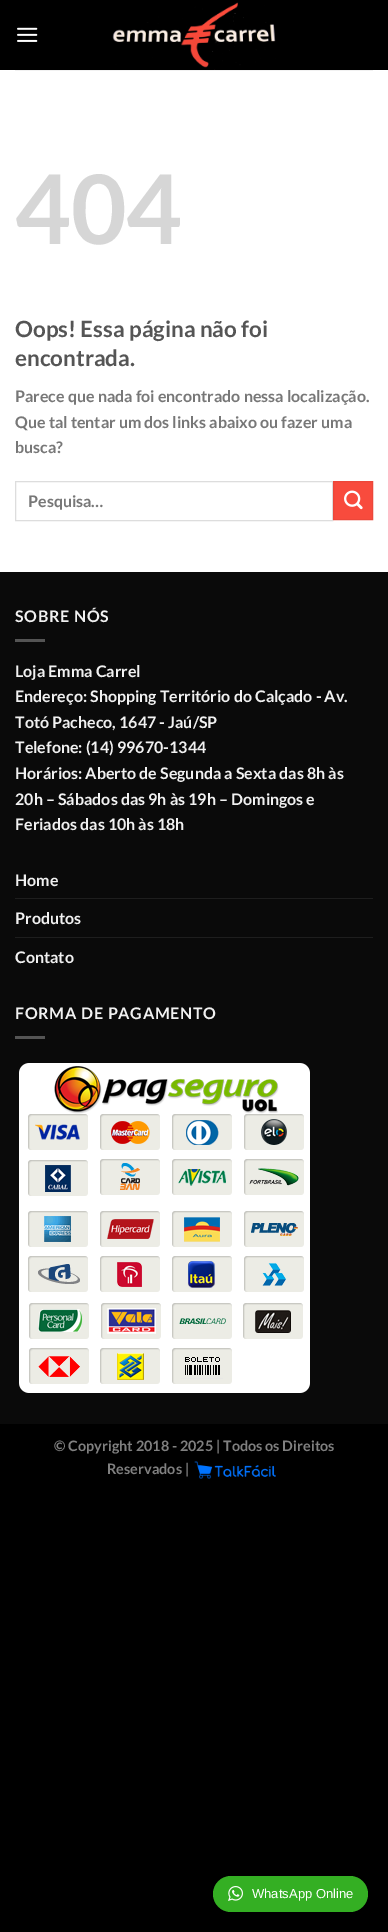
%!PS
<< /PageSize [388 1932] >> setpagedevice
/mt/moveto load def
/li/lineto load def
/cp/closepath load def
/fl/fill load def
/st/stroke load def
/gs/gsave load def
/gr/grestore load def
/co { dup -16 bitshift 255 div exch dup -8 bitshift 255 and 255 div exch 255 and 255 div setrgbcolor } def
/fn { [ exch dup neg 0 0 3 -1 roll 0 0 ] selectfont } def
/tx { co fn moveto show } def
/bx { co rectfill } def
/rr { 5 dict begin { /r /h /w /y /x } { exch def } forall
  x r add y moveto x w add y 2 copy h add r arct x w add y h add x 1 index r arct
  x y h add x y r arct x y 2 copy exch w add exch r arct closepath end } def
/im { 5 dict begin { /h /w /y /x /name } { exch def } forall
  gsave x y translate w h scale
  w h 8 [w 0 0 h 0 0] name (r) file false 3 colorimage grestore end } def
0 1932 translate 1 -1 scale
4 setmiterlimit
0 0 388 1932 16#000000 bx
0 70 388 502 16#FFFFFF bx
(media/1.raw) 17 27 21 15 im
(media/2.raw) 112 2 164 68 im
15 70 358 1 16#F1F1F1 bx
16#DDDDDD co
15.5 481.5 317 39 rectstroke
16#F84B3D co
333.5 481.5 mt 372.5 481.5 li 372.5 519.5 li 333.5 519.5 li cp gs fl gr
16#EC473A co
st
(media/3.raw) 344 490 19 20 im
0 572 388 852 16#0A0A0A bx
15 639 30 3 16#545454 bx
15 898 358 1 16#1E1E1E bx
15 937 358 1 16#1E1E1E bx
15 1036 30 3 16#545454 bx
(media/4.raw) 19 1063 291 330 im
(media/5.raw) 194 1461 82 18 im
16#34AF23 co
213 1876 155 36 18 rr fl
(media/6.raw) 228 1886 15 15 im
(404) 15 244 /Lato-Bold 96 16#D6D6D6 tx
(Oops! Essa página não foi) 15 337 /Lato-Bold 22.4 16#555555 tx
(encontrada.) 15 366 /Lato-Bold 22.4 16#555555 tx
(Parece que nada foi encontrado nessa localização.) 15 402 /Lato-Bold 16 16#777777 tx
(Que tal tentar um dos links abaixo ou fazer uma) 15 428 /Lato-Bold 16 16#777777 tx
(busca?) 15 453 /Lato-Bold 16 16#777777 tx
(Pesquisa…) 28 507 /Lato-Bold 16 16#777777 tx
16#F1F1F1 co
15 622 mt .75 0 (SOBRE NÓS) ashow
(Loja Emma Carrel) 15 677 /Lato-Bold 16 16#F1F1F1 tx
(Endereço: Shopping Território do Calçado - Av.) 15 702 /Lato-Bold 16 16#F1F1F1 tx
(Totó Pacheco, 1647 - Jaú/SP) 15 728 /Lato-Bold 16 16#F1F1F1 tx
(Telefone: \(14\) 99670-1344) 15 753 /Lato-Bold 16 16#F1F1F1 tx
(Horários: Aberto de Segunda a Sexta das 8h às) 15 779 /Lato-Bold 16 16#F1F1F1 tx
(20h – Sábados das 9h às 19h – Domingos e) 15 805 /Lato-Bold 16 16#F1F1F1 tx
(Feriados das 10h às 18h) 15 830 /Lato-Bold 16 16#F1F1F1 tx
(Home) 15 886 /Lato-Bold 16 16#F1F1F1 tx
(Produtos) 15 924 /Lato-Bold 16 16#F1F1F1 tx
(Contato) 15 963 /Lato-Bold 16 16#F1F1F1 tx
15 1019 mt .75 0 (FORMA DE PAGAMENTO) ashow
(© Copyright 2018 - 2025 | Todos os Direitos) 54 1451 /Lato-Bold 14.4 16#808080 tx
(Reservados |) 107 1474 /Lato-Bold 14.4 16#808080 tx
(WhatsApp Online) 252 1898 /LiberationSans-Regular 13 16#FFFFFF tx
showpage
